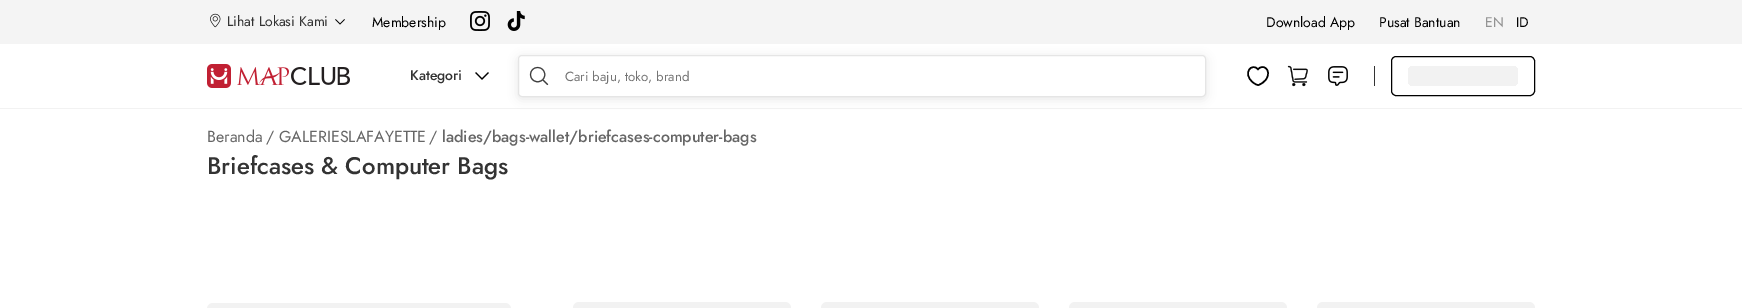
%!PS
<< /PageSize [1742 308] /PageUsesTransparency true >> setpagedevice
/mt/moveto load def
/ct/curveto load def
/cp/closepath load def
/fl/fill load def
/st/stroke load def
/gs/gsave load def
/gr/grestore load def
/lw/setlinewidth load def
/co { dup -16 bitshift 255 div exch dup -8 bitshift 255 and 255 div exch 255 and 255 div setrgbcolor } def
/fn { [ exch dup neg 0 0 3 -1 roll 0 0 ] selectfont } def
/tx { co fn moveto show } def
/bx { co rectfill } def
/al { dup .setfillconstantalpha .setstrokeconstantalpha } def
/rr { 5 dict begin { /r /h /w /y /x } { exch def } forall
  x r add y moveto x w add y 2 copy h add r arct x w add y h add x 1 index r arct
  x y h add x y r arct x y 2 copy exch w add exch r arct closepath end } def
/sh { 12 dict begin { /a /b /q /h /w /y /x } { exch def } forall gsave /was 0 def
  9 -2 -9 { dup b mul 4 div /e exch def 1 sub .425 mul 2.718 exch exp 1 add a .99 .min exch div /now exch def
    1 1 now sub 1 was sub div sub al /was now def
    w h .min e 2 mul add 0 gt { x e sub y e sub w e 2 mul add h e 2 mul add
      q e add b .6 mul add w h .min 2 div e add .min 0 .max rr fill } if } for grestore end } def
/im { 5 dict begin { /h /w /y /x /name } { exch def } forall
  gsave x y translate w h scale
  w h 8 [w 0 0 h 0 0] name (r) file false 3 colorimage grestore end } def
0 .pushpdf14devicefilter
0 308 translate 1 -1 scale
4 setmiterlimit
0 0 1742 308 16#FFFFFF bx
0 0 1742 44 16#F4F4F4 bx
(media/1.raw) 210 13 11 15 im
(media/2.raw) 335 19 10 6 im
(media/3.raw) 470 11 20 20 im
(media/4.raw) 507 11 18 20 im
0 108 1742 1 16#F2F2F2 bx
(media/5.raw) 207 64 143 24 im
(media/6.raw) 475 72 14 8 im
16#000000 co
518 57 688 42 4 5 .1 sh
16#FFFFFF co
518.5 55.5 687 41 3.5 rr gs fl gr
16#E5E5E5 co
st
(media/7.raw) 529 66 20 20 im
16#000000 co
1.5 lw
1 setlinecap
1 setlinejoin
1258.5 85 mt 1257 85.5 1254.5 83.5 1253 82.5 ct 1241.5 73 1252.5 62 1258 69.5 ct 1262.5 63 1272.5 70 1266 79.5 ct 1264 82 1261.5 84 1258.5 85 ct cp st
(media/8.raw) 1287 65 21 22 im
(media/9.raw) 1328 66 20 20 im
1374 66 1 20 16#333333 bx
16#000000 co
1 lw
0 setlinecap
0 setlinejoin
1391.5 56.5 143 39 4.5 rr st
gs 1408 66 110 20 6 rr clip newpath
<< /ShadingType 2 /ColorSpace /DeviceRGB /Coords [1076 118 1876 118] /Extend [true true] /Function << /FunctionType 3 /Domain [0 1] /Functions [<< /FunctionType 2 /Domain [0 1] /C0 [.949 .949 .949] /C1 [.949 .949 .949] /N 1 >> << /FunctionType 2 /Domain [0 1] /C0 [.949 .949 .949] /C1 [1 1 1] /N 1 >> << /FunctionType 2 /Domain [0 1] /C0 [1 1 1] /C1 [.949 .949 .949] /N 1 >> << /FunctionType 2 /Domain [0 1] /C0 [.949 .949 .949] /C1 [.949 .949 .949] /N 1 >>] /Bounds [.08 .18 .33] /Encode [0 1 0 1 0 1 0 1] >> >> shfill gr
16#F2F2F2 co
207 303 304 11 6 rr fl
573 302 218 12 6 rr fl
821 302 218 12 6 rr fl
1069 302 218 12 6 rr fl
1317 302 218 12 6 rr fl
(Lihat Lokasi Kami) 227 26 /Jost-Regular 14 16#333333 tx
(Membership) 372 27 /Jost-Regular 14 16#000000 tx
(Download App) 1266 27 /Jost-Regular 14 16#000000 tx
(Pusat Bantuan) 1379 27 /Jost-Regular 14 16#000000 tx
(EN) 1485 27 /Jost-Regular 14 16#929292 tx
(ID) 1516 27 /Jost-Regular 14 16#000000 tx
(Kategori) 410 80 /Jost-Medium 14 16#333333 tx
(Cari baju, toko, brand) 565 81 /Jost-Regular 13.25 16#757575 tx
(Beranda) 207 142 /Jost-Regular 16 16#666666 tx
(/ GALERIESLAFAYETTE) 266 142 /Jost-Regular 16 16#666666 tx
(/) 429 142 /Jost-Regular 16 16#666666 tx
(ladies/bags-wallet/briefcases-computer-bags) 442 142 /Jost-Medium 16 16#666666 tx
(Briefcases & Computer Bags) 207 174 /Jost-Medium 24 16#333333 tx
.poppdf14devicefilter showpage
